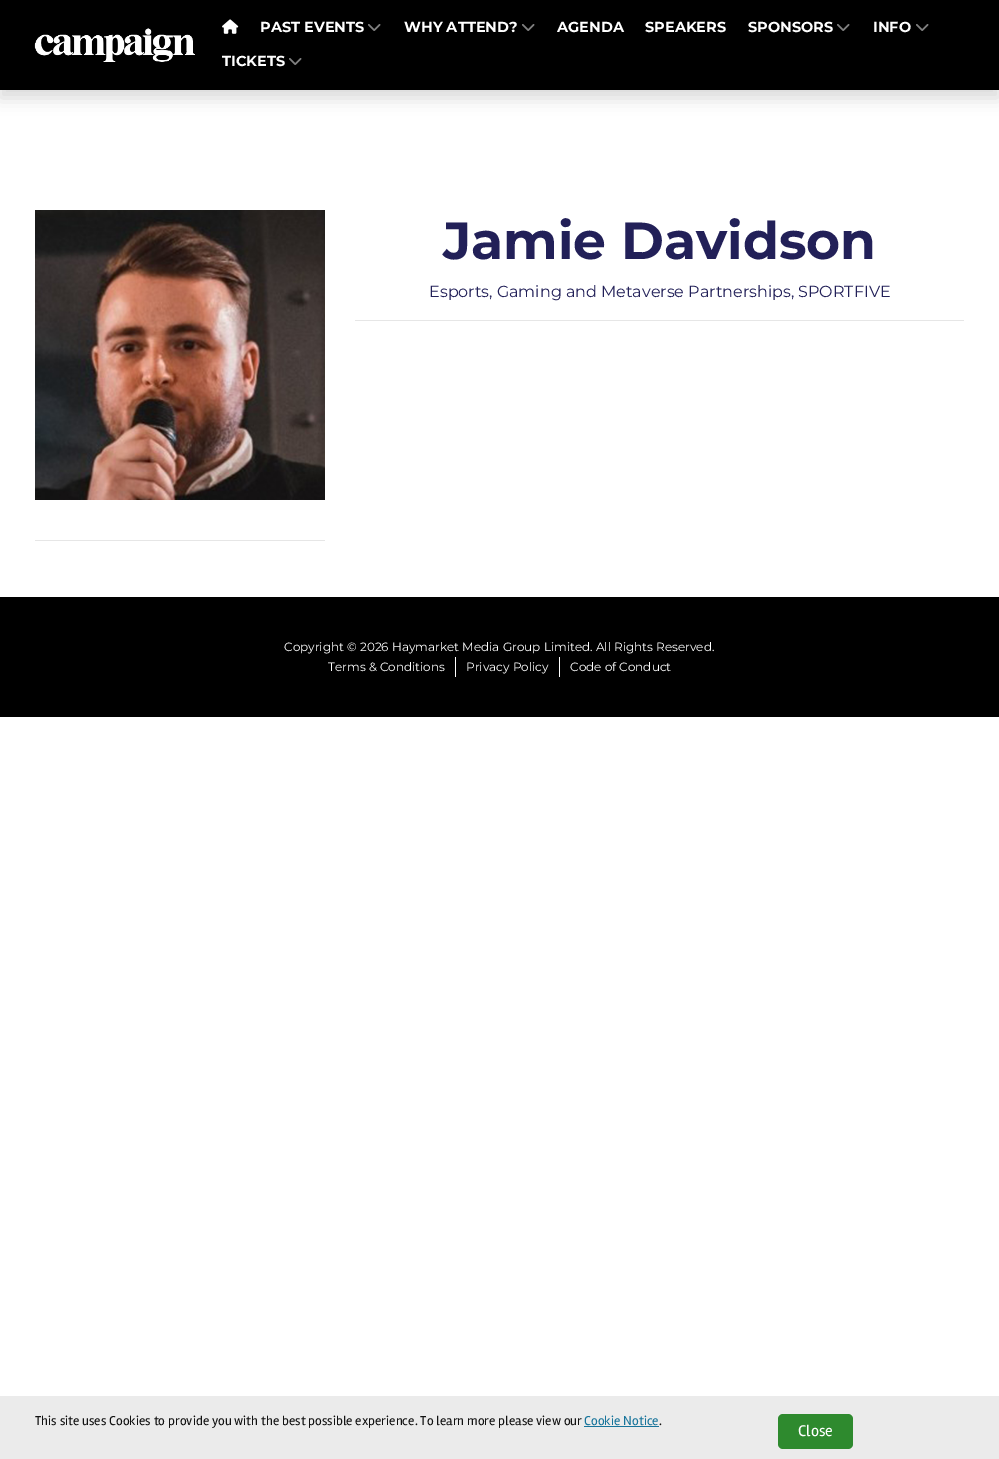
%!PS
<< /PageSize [999 1459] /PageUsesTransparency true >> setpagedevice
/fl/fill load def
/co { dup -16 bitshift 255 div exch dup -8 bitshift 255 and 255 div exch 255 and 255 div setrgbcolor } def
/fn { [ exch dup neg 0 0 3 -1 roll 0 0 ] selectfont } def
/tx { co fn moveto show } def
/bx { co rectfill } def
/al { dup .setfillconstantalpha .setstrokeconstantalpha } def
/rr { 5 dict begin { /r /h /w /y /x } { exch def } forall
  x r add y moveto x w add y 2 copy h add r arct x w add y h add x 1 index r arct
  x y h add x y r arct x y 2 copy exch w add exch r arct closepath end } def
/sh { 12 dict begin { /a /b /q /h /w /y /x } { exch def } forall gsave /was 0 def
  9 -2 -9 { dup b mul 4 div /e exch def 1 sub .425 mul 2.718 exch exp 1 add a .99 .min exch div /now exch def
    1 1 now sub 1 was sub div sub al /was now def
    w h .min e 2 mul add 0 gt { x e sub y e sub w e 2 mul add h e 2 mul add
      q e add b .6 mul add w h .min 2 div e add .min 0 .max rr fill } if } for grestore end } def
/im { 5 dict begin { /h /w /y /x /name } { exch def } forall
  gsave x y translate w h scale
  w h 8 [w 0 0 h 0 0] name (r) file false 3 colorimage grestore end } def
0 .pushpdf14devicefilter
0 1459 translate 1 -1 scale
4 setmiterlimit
0 0 999 1459 16#FFFFFF bx
16#000000 co
0 8 999 90 0 8 .15 sh
0 0 999 90 16#000000 bx
(media/1.raw) 34 28 161 34 im
(media/2.raw) 222 19 17 15 im
(media/3.raw) 368 24 13 7 im
(media/3.raw) 522 24 13 7 im
(media/3.raw) 837 24 13 7 im
(media/3.raw) 916 24 13 7 im
(media/3.raw) 289 58 13 7 im
(media/4.raw) 35 210 290 290 im
35 540 290 1 16#E6E6E6 bx
355 320 609 1 16#E6E6E6 bx
0 597 999 120 16#000000 bx
455 657 1 20 16#FFFFFF bx
559 657 1 20 16#FFFFFF bx
0 1396 999 63 16#EBEBEB bx
584 1426 75 1 16#17749B bx
16#2E8A2E co
778 1414 75 35 5 rr fl
(PAST EVENTS) 260 32 /Montserrat-Bold 14.5 16#FFFFFF tx
(WHY ATTEND?) 404 32 /Montserrat-Bold 14.5 16#FFFFFF tx
(AGENDA) 557 32 /Montserrat-Bold 14.5 16#FFFFFF tx
(SPEAKERS) 645 32 /Montserrat-Bold 14.5 16#FFFFFF tx
(SPONSORS) 748 32 /Montserrat-Bold 14.5 16#FFFFFF tx
(INFO) 873 32 /Montserrat-Bold 14.5 16#FFFFFF tx
(TICKETS) 222 66 /Montserrat-Bold 14.5 16#FFFFFF tx
(Jamie Davidson) 443 259 /Montserrat-Bold 52 16#222058 tx
(Esports, Gaming and Metaverse Partnerships, SPORTFIVE) 429 297 /Montserrat-Regular 16 16#222058 tx
(Copyright © 2026 Haymarket Media Group Limited. All Rights Reserved.) 284 651 /Montserrat-Regular 12 16#FFFFFF tx
(Terms & Conditions) 328 671 /Montserrat-Regular 12 16#FFFFFF tx
(Privacy Policy) 466 671 /Montserrat-Regular 12 16#FFFFFF tx
(Code of Conduct) 570 671 /Montserrat-Regular 12 16#FFFFFF tx
(This site uses Cookies to provide you with the best possible experience. To learn more please view our) 35 1425 /Rambla-Regular 13.3 16#121212 tx
(Cookie Notice) 584 1425 /Rambla-Regular 13.3 16#17749B tx
(.) 659 1425 /Rambla-Regular 13.3 16#121212 tx
(Close) 798 1436 /Rambla-Regular 16 16#FFFFFF tx
.poppdf14devicefilter showpage
